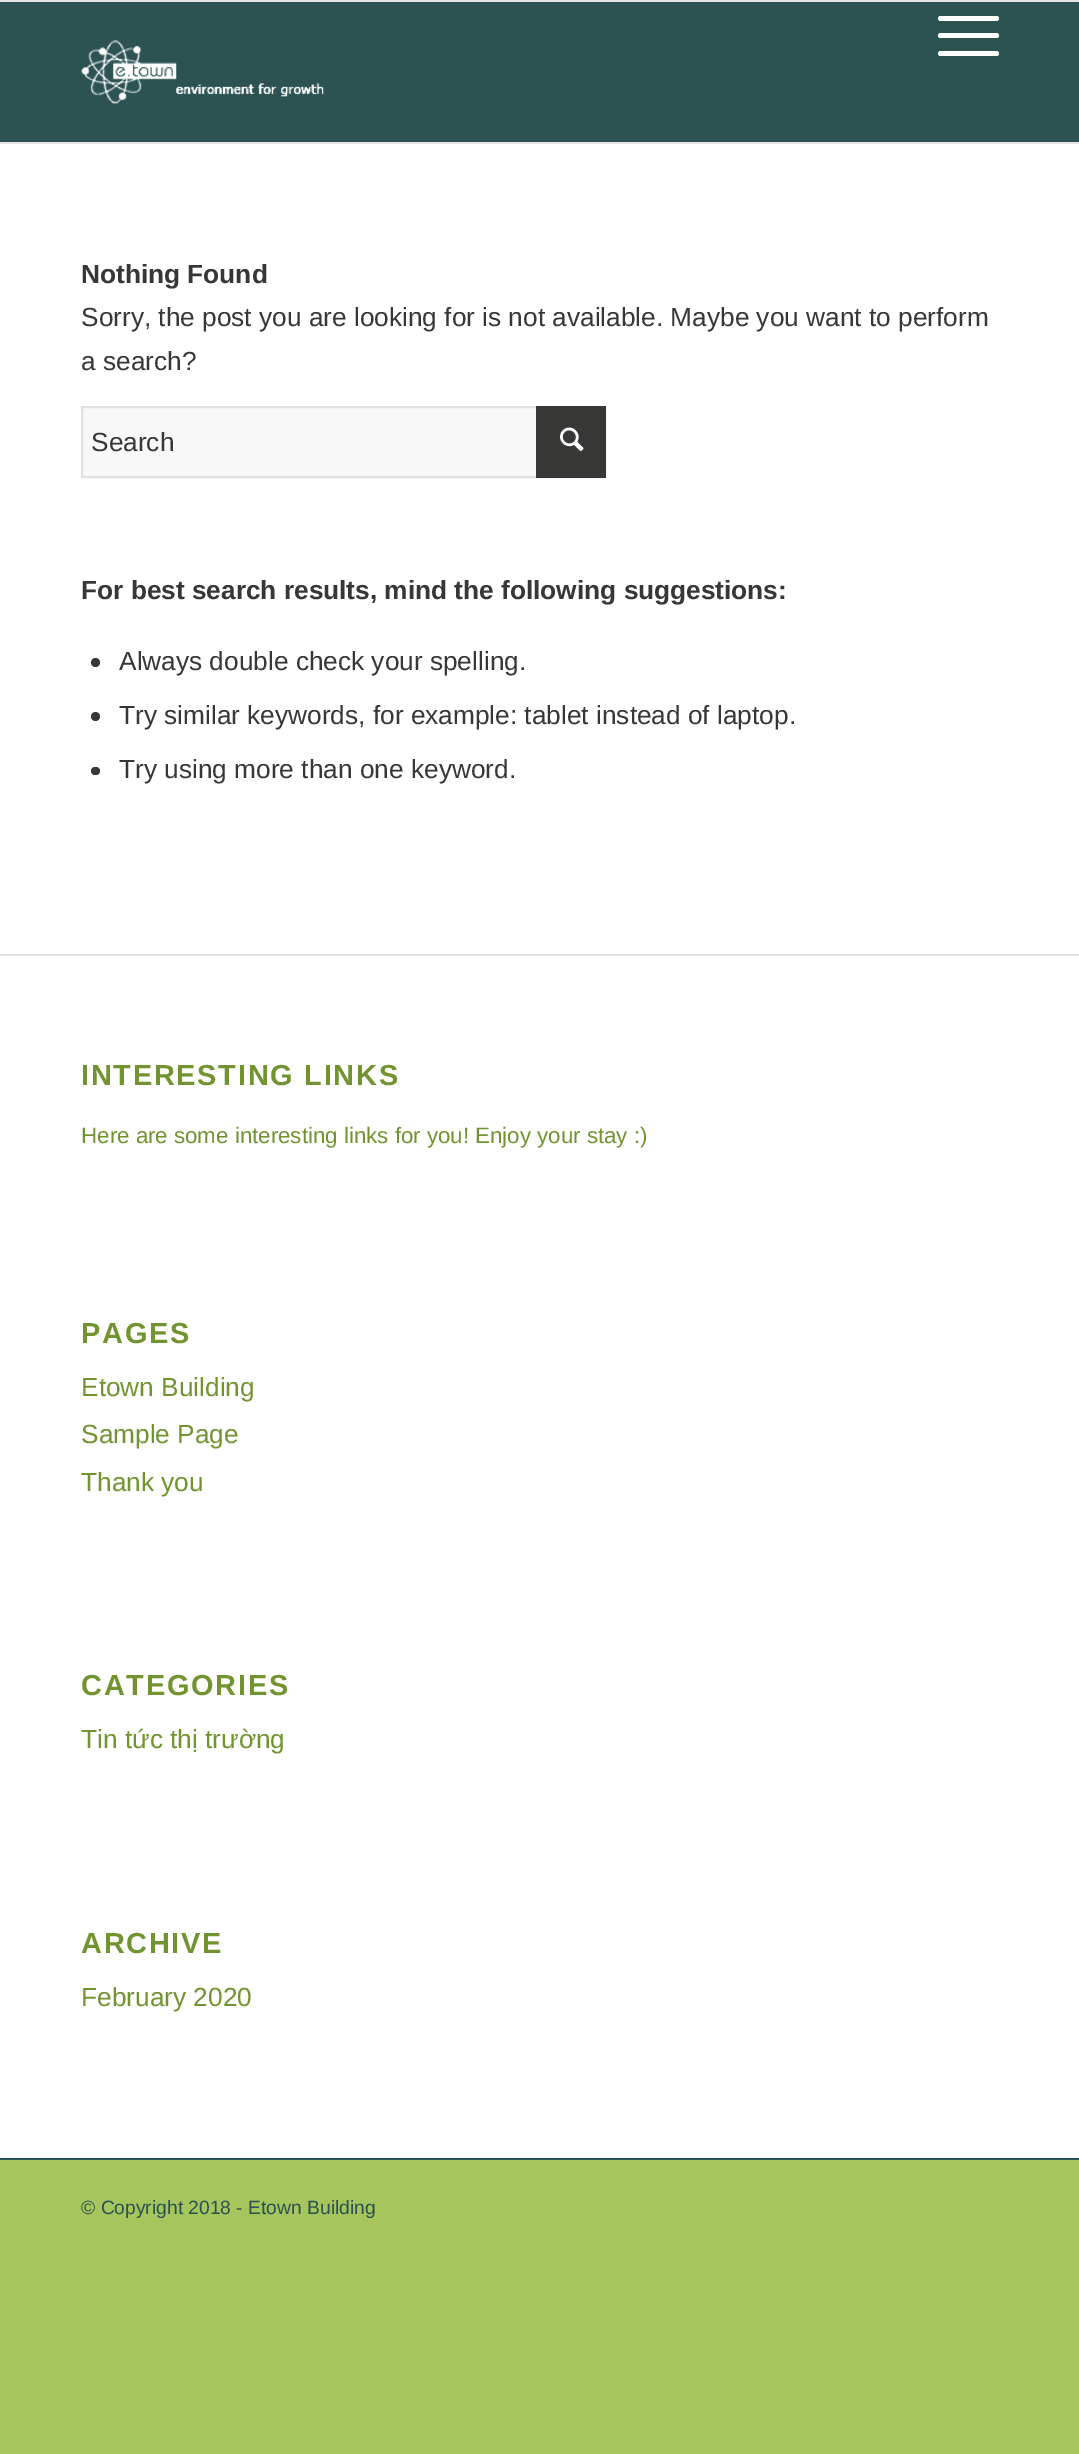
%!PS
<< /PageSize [1079 2454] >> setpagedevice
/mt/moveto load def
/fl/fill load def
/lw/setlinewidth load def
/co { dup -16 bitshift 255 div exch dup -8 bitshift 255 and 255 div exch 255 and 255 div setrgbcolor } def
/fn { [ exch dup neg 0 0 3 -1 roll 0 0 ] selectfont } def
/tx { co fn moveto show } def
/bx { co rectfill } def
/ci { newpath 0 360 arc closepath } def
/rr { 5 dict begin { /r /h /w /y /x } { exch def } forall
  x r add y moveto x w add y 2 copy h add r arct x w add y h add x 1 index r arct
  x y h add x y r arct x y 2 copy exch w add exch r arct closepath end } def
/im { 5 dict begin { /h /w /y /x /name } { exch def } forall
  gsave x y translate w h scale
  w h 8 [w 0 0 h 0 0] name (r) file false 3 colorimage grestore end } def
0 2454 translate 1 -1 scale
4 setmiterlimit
0 0 1079 2454 16#A6C55D bx
0 0 1079 2 16#E1E1E1 bx
0 142 1079 2 16#E1E1E1 bx
0 2 1079 140 16#2C5352 bx
16#FFFFFF co
938 33 61 5 2.5 rr fl
938 16 61 5 2.5 rr fl
938 51 61 5 2.5 rr fl
(media/1.raw) 81 40 243 64 im
0 144 1079 810 16#FFFFFF bx
83 408 453 68 16#F8F8F8 bx
16#E1E1E1 co
2 lw
82 407 523 70 rectstroke
536 406 70 72 16#373835 bx
(media/2.raw) 560 427 24 25 im
95.5 662.5 4.5 ci fl
95.5 716.5 4.5 ci fl
91 767 9 8 4 rr fl
0 956 1079 1202 16#FFFFFF bx
0 954 1079 2 16#E1E1E1 bx
0 2158 1079 2 16#2C5352 bx
(Nothing Found) 81 283 /LiberationSans-Bold 26.25 16#373835 tx
(Sorry, the post you are looking for is not available. Maybe you want to perform) 81 326 /LiberationSans-Regular 26.25 16#373835 tx
(a search?) 81 370 /LiberationSans-Regular 26.25 16#373835 tx
(Search) 91 451 /LiberationSans-Regular 26.25 16#373835 tx
(For best search results, mind the following suggestions:) 81 599 /LiberationSans-Bold 26.25 16#373835 tx
(Always double check your spelling.) 119 670 /LiberationSans-Regular 26.25 16#373835 tx
(Try similar keywords, for example: tablet instead of laptop.) 119 724 /LiberationSans-Regular 26.25 16#373835 tx
(Try using more than one keyword.) 119 778 /LiberationSans-Regular 26.25 16#373835 tx
/LiberationSans-Bold 28.9 fn
16#719430 co
81 1085 mt 1.75 0 (INTERESTING LINKS) ashow
(Here are some interesting links for you! Enjoy your stay :\)) 81 1143 /LiberationSans-Regular 22.3 16#719430 tx
/LiberationSans-Bold 28.9 fn
81 1343 mt 1.75 0 (PAGES) ashow
(Etown Building) 81 1396 /LiberationSans-Regular 26.25 16#719430 tx
(Sample Page) 81 1443 /LiberationSans-Regular 26.25 16#719430 tx
(Thank you) 81 1491 /LiberationSans-Regular 26.25 16#719430 tx
/LiberationSans-Bold 28.9 fn
81 1695 mt 1.75 0 (CATEGORIES) ashow
(Tin tức thị trường) 81 1748 /LiberationSans-Regular 26.25 16#719430 tx
/LiberationSans-Bold 28.9 fn
81 1953 mt 1.75 0 (ARCHIVE) ashow
(February 2020) 81 2006 /LiberationSans-Regular 26.25 16#719430 tx
(© Copyright 2018 - Etown Building) 81 2214 /LiberationSans-Regular 19.25 16#2C5352 tx
showpage
